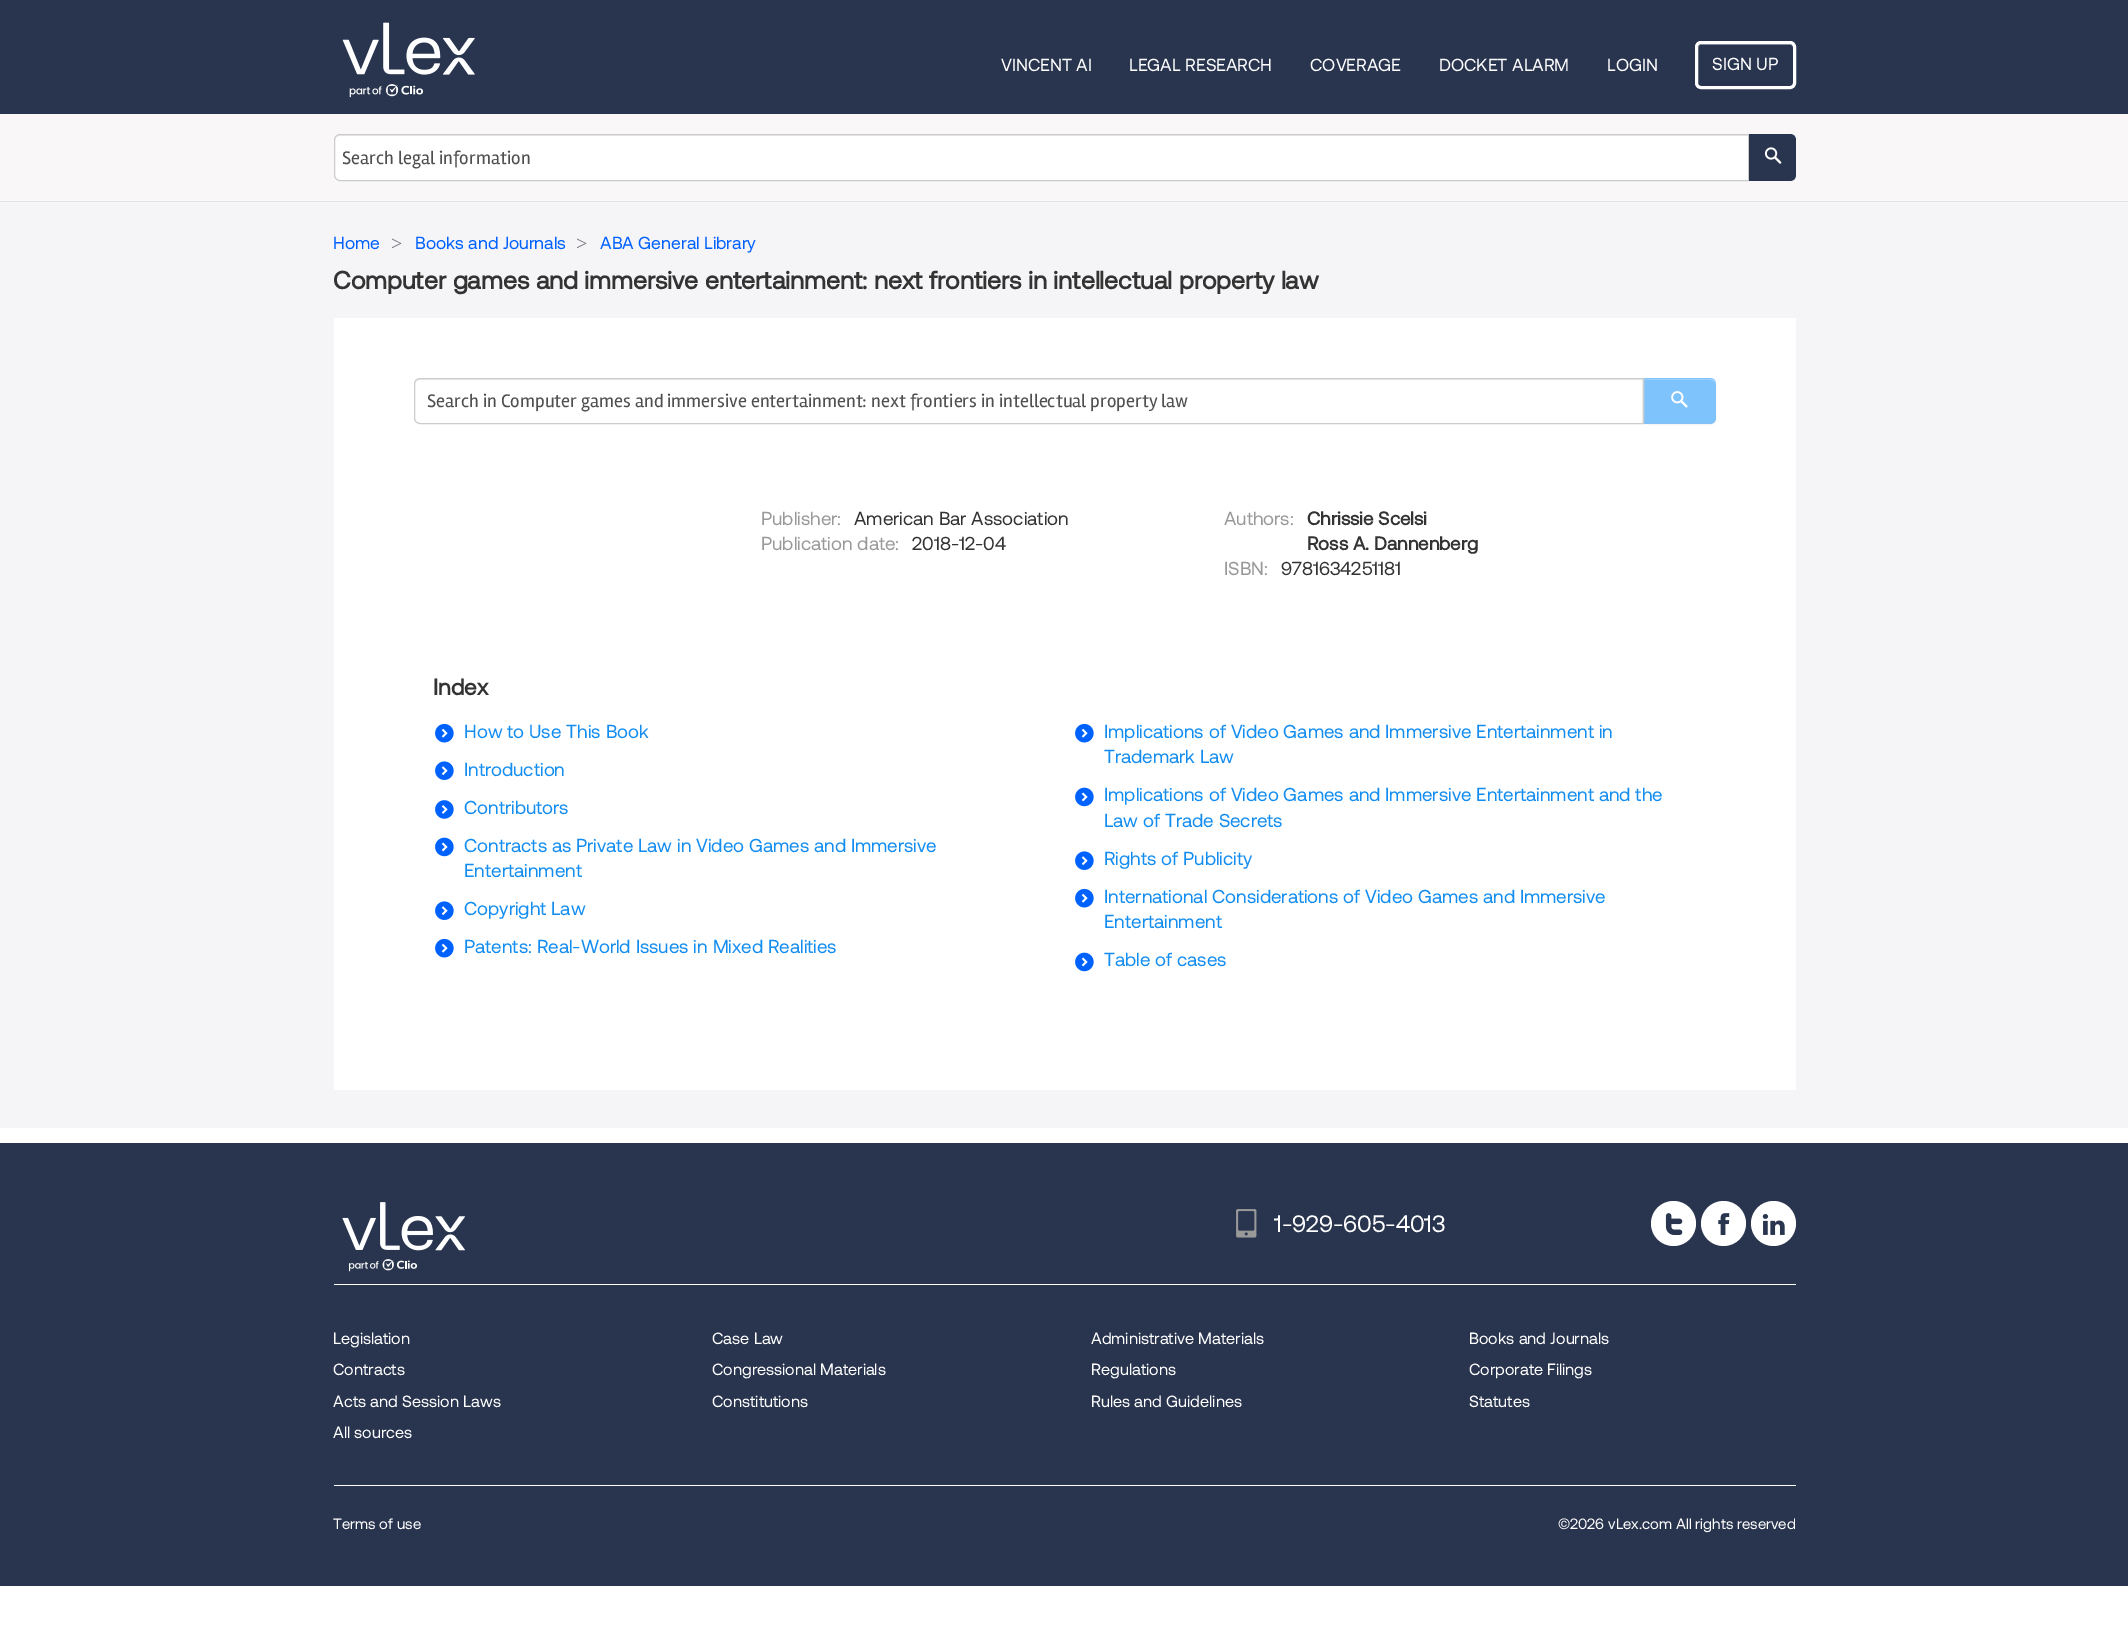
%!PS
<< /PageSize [2128 1642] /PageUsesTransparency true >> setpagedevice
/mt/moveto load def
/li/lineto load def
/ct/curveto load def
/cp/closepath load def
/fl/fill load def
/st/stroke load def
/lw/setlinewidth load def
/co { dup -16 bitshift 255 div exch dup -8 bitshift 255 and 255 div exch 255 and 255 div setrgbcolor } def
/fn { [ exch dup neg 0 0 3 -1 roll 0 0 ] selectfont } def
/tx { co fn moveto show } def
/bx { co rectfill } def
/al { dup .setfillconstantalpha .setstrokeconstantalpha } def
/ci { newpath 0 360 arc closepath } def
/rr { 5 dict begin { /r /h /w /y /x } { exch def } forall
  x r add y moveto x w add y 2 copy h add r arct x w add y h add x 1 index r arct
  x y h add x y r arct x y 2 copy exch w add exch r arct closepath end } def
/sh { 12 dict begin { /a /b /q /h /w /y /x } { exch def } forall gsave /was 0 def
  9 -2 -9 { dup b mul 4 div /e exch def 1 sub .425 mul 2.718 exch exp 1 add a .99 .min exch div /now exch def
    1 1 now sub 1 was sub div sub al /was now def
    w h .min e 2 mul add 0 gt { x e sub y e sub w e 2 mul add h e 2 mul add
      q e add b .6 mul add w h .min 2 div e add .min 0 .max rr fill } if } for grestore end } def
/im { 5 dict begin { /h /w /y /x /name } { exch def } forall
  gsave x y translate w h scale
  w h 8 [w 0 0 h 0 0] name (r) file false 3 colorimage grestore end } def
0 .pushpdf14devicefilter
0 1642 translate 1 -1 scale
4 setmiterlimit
0 0 2128 1642 16#FFFFFF bx
0 0 2128 114 16#29354E bx
(media/1.raw) 342 22 133 76 im
16#545D71 co
1701 45 mt 1790 45 li 1792 45 1794 47 1794 49 ct 1794 40 1780 44 1775 44 ct 1717 44 li 1712 44 1698 40 1698 49 ct 1698 47 1699 45 1701 45 ct cp fl
16#FFFFFF co
3 lw
1696.5 42.5 98 45 4.5 rr st
0 114 2128 89 16#F9F7F7 bx
0 201 2128 1 16#E1E1E1 bx
16#FFFFFF co
340 134 mt 1749 134 li 1749 181 li 340 181 li 336.5 181 334 178.5 334 175 ct 334 140 li 334 136.5 336.5 134 340 134 ct cp fl
16#ECECEC co
340 136 mt 1748 136 li 1748 135 li 340 135 li 337 135 335 138 335 141 ct 335 138 337 136 340 136 ct cp fl
16#CCCCCC co
1 lw
340 134.5 mt 1748.5 134.5 li 1748.5 180.5 li 340 180.5 li 337 180.5 334.5 178 334.5 175 ct 334.5 140 li 334.5 137 337 134.5 340 134.5 ct cp st
16#29354E co
1749 134 mt 1790 134 li 1793.5 134 1796 136.5 1796 140 ct 1796 175 li 1796 178.5 1793.5 181 1790 181 ct 1749 181 li cp fl
(media/2.raw) 1764 147 18 17 im
0 203 2128 925 16#F5F5F7 bx
334 318 1462 772 16#FFFFFF bx
16#000000 co
1643 379 73 46 6 1 .05 sh
16#7EC3FC co
1643 378 mt 1710 378 li 1713.5 378 1716 380.5 1716 384 ct 1716 418 li 1716 421.5 1713.5 424 1710 424 ct 1643 424 li cp fl
0.2 al
16#FFFFFF co
1642 379 mt 1642 380 li 1699 380 li 1705 380 1716 378 1716 386 ct 1716 382 1715 379 1710 379 ct cp 1716 391 mt 1716 413 li cp eofill
0.1 al
16#A8CBFF co
1642 379 mt 1642 378 li 1710 378 li 1713 378 1716 380 1716 383 ct 1715 377 1703 379 1699 379 ct cp 1716 401 mt 1716 383 li cp eofill
16#A4BDDB co
1712 424 mt 1642 424 li 1642 422 li 1699 422 li 1703 422 1715 424 1716 418 ct 1716 420 1714 423 1712 424 ct cp 1716 416 mt 1716 418 li 1716 401 li cp eofill
1 al
16#FFFFFF co
420 378 mt 1644 378 li 1644 424 li 420 424 li 416.5 424 414 421.5 414 418 ct 414 384 li 414 380.5 416.5 378 420 378 ct cp fl
16#ECECEC co
420 380 mt 1642 380 li 1642 423 li 1643 423 li 1643 379 li 420 379 li 417 379 415 382 415 385 ct 415 382 417 380 420 380 ct cp fl
16#CCCCCC co
420 378.5 mt 1643.5 378.5 li 1643.5 423.5 li 420 423.5 li 417 423.5 414.5 421 414.5 418 ct 414.5 384 li 414.5 381 417 378.5 420 378.5 ct cp st
(media/3.raw) 1671 391 17 17 im
(media/4.raw) 435 723 19 20 im
(media/4.raw) 1075 723 19 20 im
(media/5.raw) 435 761 19 19 im
(media/6.raw) 435 800 19 19 im
(media/7.raw) 1075 787 19 20 im
(media/7.raw) 435 837 19 20 im
(media/5.raw) 1075 851 19 19 im
(media/5.raw) 435 901 19 19 im
(media/4.raw) 1075 888 19 20 im
(media/4.raw) 435 938 19 20 im
(media/7.raw) 1075 952 19 20 im
0 1143 2128 443 16#29354E bx
334 1284 1462 1 16#FFFFFF bx
(media/8.raw) 342 1202 123 70 im
(media/9.raw) 1236 1209 21 29 im
1673.5 1223.5 22.5 ci fl
(media/10.raw) 1665 1213 18 22 im
1723.5 1223.5 22.5 ci fl
(media/11.raw) 1718 1213 12 22 im
1773.5 1223.5 22.5 ci fl
(media/12.raw) 1762 1214 23 21 im
334 1485 1462 1 16#FFFFFF bx
(VINCENT AI) 1001 71 /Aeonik-Regular 17.5 16#FFFFFF tx
(LEGAL RESEARCH) 1129 71 /Aeonik-Regular 17.5 16#FFFFFF tx
(COVERAGE) 1310 71 /Aeonik-Regular 17.5 16#FFFFFF tx
(DOCKET ALARM) 1439 71 /Aeonik-Regular 17.5 16#FFFFFF tx
(LOGIN) 1607 71 /Aeonik-Regular 17.5 16#FFFFFF tx
(SIGN UP) 1712 70 /Aeonik-Regular 17.5 16#FFFFFF tx
(Search legal information) 342 164 /Rambla-Regular 18.75 16#505050 tx
(Home) 333 249 /Aeonik-Regular 17.5 16#0161FF tx
(>) 391 250 /LiberationSerif-Regular 20 16#71717A tx
(Books and Journals) 415 249 /Aeonik-Regular 17.5 16#0161FF tx
(>) 576 250 /LiberationSerif-Regular 20 16#71717A tx
(ABA General Library) 600 249 /Aeonik-Regular 17.5 16#0161FF tx
(Computer games and immersive entertainment: next frontiers in intellectual property law) 333 289 /Aeonik-Bold 25 16#333333 tx
(Search in Computer games and immersive entertainment: next frontiers in intellectual property law) 427 407 /Rambla-Regular 18.75 16#505050 tx
(Publisher:) 761 525 /Aeonik-Regular 18.75 16#999999 tx
(American Bar Association) 854 525 /Aeonik-Regular 18.75 16#333333 tx
(Publication date:) 761 550 /Aeonik-Regular 18.75 16#999999 tx
(2018-12-04) 912 550 /Aeonik-Regular 18.75 16#333333 tx
(Authors:) 1224 525 /Aeonik-Regular 18.75 16#999999 tx
(Chrissie Scelsi) 1307 525 /Aeonik-Bold 18.75 16#333333 tx
(Ross A. Dannenberg) 1307 550 /Aeonik-Bold 18.75 16#333333 tx
(ISBN:) 1224 575 /Aeonik-Regular 18.75 16#999999 tx
(9781634251181) 1281 575 /Aeonik-Regular 18.75 16#333333 tx
(Index) 433 695 /Aeonik-Bold 22.5 16#333333 tx
(How to Use This Book) 464 738 /Aeonik-Regular 18.75 16#138DF0 tx
(Implications of Video Games and Immersive Entertainment in) 1104 738 /Aeonik-Regular 18.75 16#138DF0 tx
(Trademark Law) 1104 763 /Aeonik-Regular 18.75 16#138DF0 tx
(Introduction) 464 776 /Aeonik-Regular 18.75 16#138DF0 tx
(Contributors) 464 814 /Aeonik-Regular 18.75 16#138DF0 tx
(Implications of Video Games and Immersive Entertainment and the) 1104 801 /Aeonik-Regular 18.75 16#138DF0 tx
(Law of Trade Secrets) 1104 827 /Aeonik-Regular 18.75 16#138DF0 tx
(Contracts as Private Law in Video Games and Immersive) 464 852 /Aeonik-Regular 18.75 16#138DF0 tx
(Entertainment) 464 877 /Aeonik-Regular 18.75 16#138DF0 tx
(Rights of Publicity) 1104 865 /Aeonik-Regular 18.75 16#138DF0 tx
(Copyright Law) 464 915 /Aeonik-Regular 18.75 16#138DF0 tx
(International Considerations of Video Games and Immersive) 1104 903 /Aeonik-Regular 18.75 16#138DF0 tx
(Entertainment) 1104 928 /Aeonik-Regular 18.75 16#138DF0 tx
(Patents: Real-World Issues in Mixed Realities) 464 953 /Aeonik-Regular 18.75 16#138DF0 tx
(Table of cases) 1104 966 /Aeonik-Regular 18.75 16#138DF0 tx
(1-929-605-4013) 1274 1232 /Aeonik-Regular 23.75 16#FFFFFF tx
(Legislation) 333 1344 /Aeonik-Regular 16.25 16#FFFFFF tx
(Contracts) 333 1375 /Aeonik-Regular 16.25 16#FFFFFF tx
(Acts and Session Laws) 333 1407 /Aeonik-Regular 16.25 16#FFFFFF tx
(All sources) 333 1438 /Aeonik-Regular 16.25 16#FFFFFF tx
(Case Law) 712 1344 /Aeonik-Regular 16.25 16#FFFFFF tx
(Congressional Materials) 712 1375 /Aeonik-Regular 16.25 16#FFFFFF tx
(Constitutions) 712 1407 /Aeonik-Regular 16.25 16#FFFFFF tx
(Administrative Materials) 1091 1344 /Aeonik-Regular 16.25 16#FFFFFF tx
(Regulations) 1091 1375 /Aeonik-Regular 16.25 16#FFFFFF tx
(Rules and Guidelines) 1091 1407 /Aeonik-Regular 16.25 16#FFFFFF tx
(Books and Journals) 1469 1344 /Aeonik-Regular 16.25 16#FFFFFF tx
(Corporate Filings) 1469 1375 /Aeonik-Regular 16.25 16#FFFFFF tx
(Statutes) 1469 1407 /Aeonik-Regular 16.25 16#FFFFFF tx
(Terms of use) 333 1529 /Aeonik-Regular 15 16#FFFFFF tx
(©2026 vLex.com All rights reserved) 1558 1529 /Aeonik-Regular 15 16#FFFFFF tx
.poppdf14devicefilter showpage
